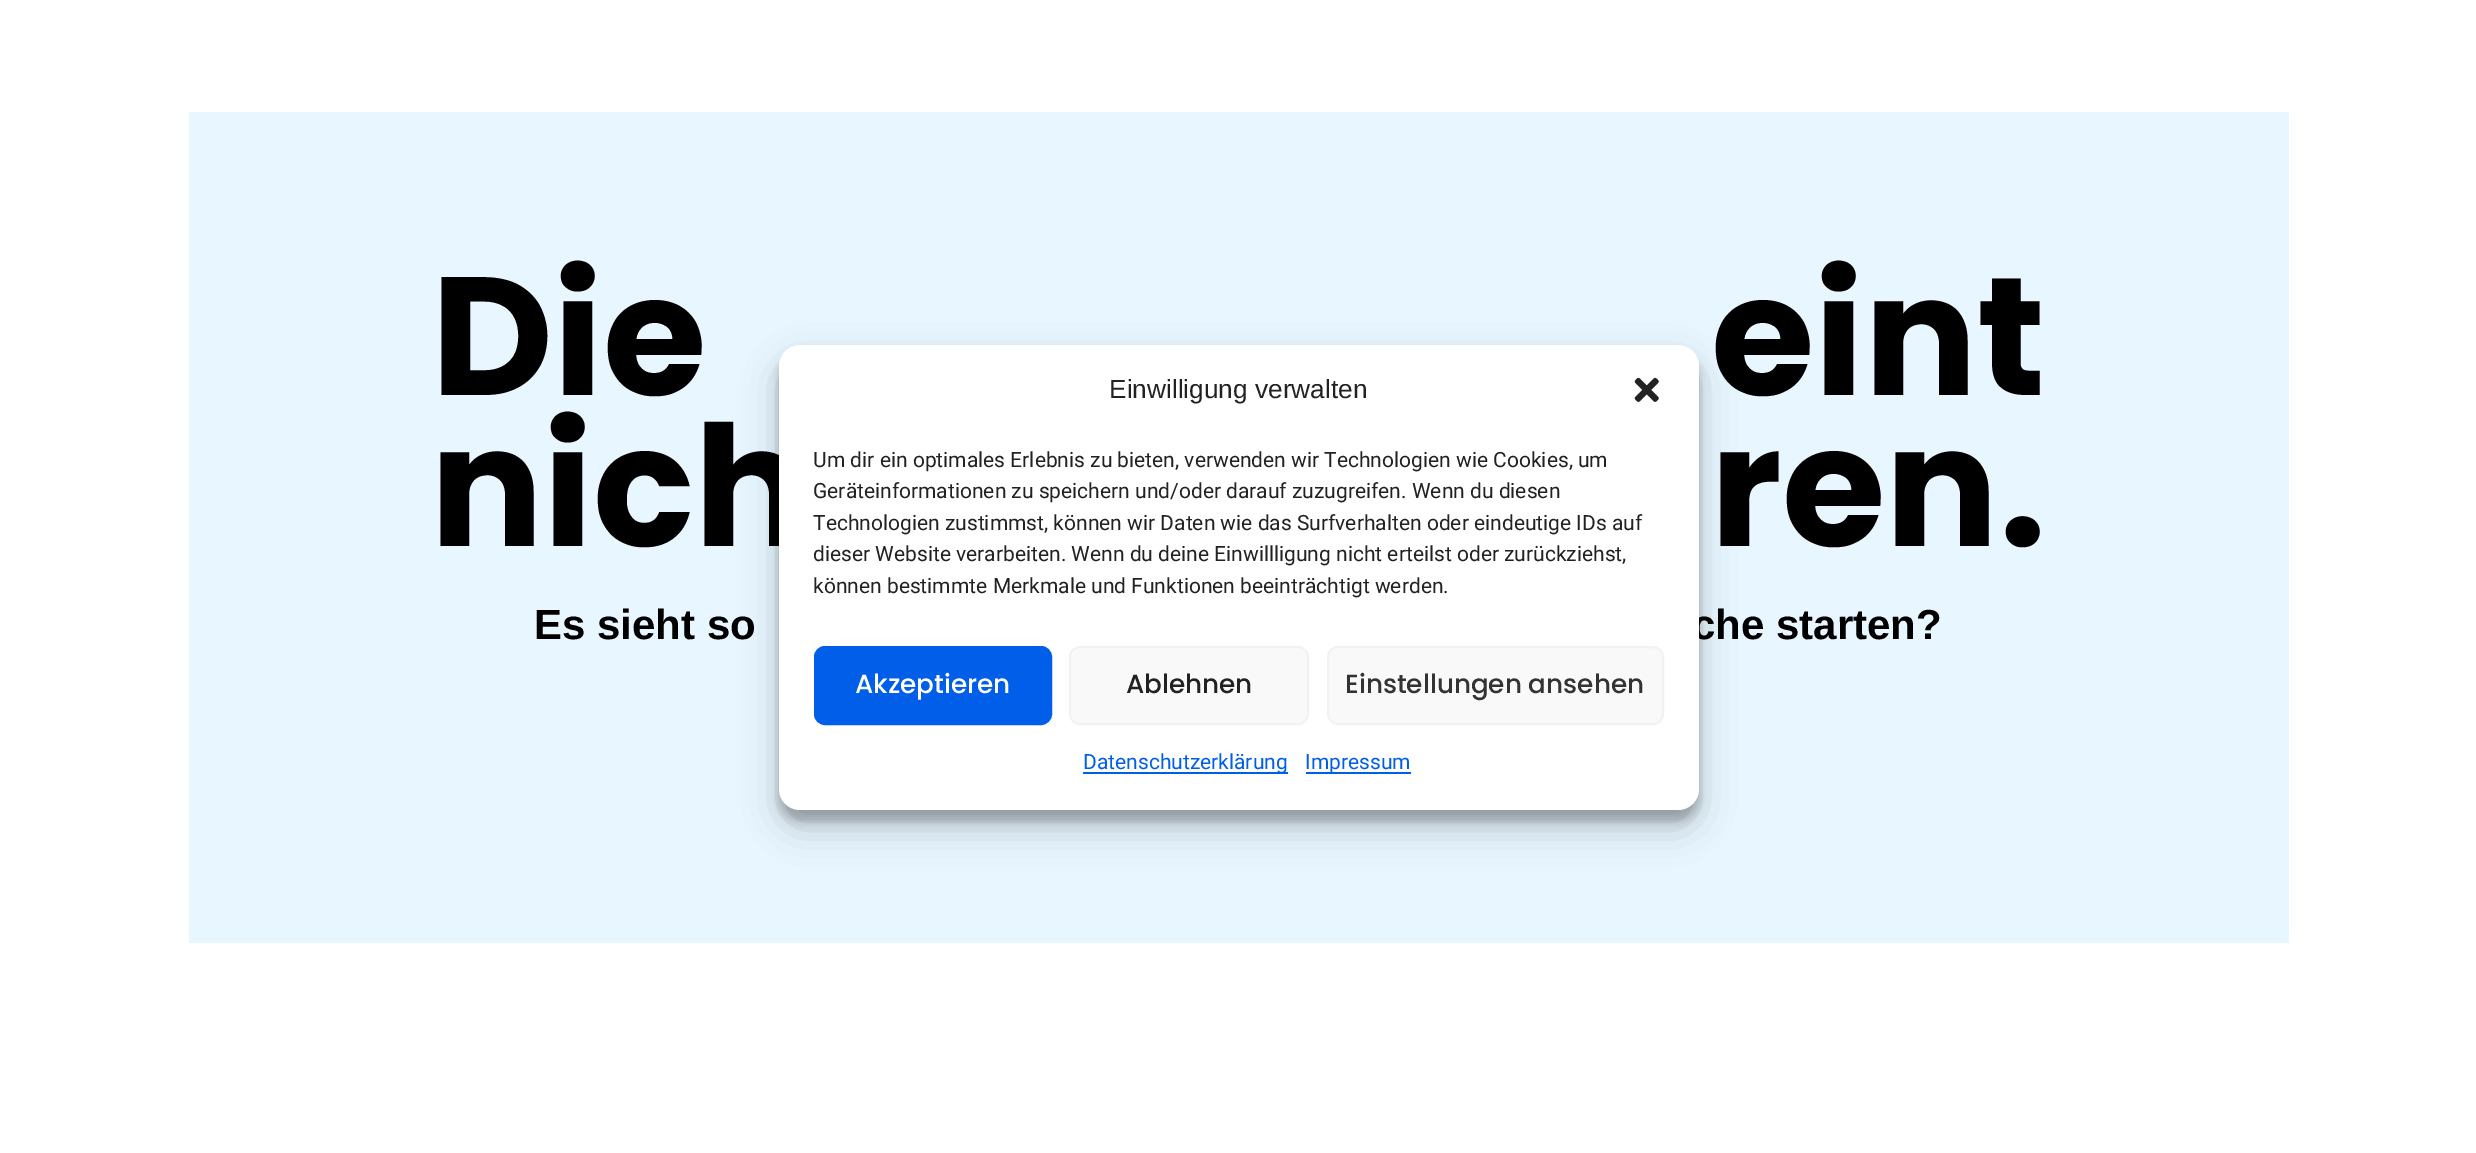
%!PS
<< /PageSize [2476 1153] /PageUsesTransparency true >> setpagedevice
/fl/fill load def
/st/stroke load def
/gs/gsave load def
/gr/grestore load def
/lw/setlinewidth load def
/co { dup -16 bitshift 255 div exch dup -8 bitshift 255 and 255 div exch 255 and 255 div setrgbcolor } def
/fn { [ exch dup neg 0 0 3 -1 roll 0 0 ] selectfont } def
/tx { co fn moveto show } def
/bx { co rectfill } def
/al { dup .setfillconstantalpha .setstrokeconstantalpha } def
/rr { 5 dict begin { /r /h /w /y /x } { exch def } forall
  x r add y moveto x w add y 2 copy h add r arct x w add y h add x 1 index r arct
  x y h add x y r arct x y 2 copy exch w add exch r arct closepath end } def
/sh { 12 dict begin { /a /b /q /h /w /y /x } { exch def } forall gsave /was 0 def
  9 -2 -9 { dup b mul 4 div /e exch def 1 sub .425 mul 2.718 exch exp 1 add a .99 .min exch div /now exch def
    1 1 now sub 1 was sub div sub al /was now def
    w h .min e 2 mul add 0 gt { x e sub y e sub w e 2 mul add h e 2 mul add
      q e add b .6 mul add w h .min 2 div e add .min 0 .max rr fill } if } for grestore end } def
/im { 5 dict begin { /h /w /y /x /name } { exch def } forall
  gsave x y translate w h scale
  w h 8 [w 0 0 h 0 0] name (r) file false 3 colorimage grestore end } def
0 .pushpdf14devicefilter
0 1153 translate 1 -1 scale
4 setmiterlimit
0 0 2476 1153 16#FFFFFF bx
189 112 2100 831 16#E7F6FF bx
16#000000 co
779 355 920 466 21 5 .23 sh
779 362 920 466 21 17.5 .19 sh
(Die) 431 395 /Poppins-Bold 168 16#000000 tx
(eint) 1711 395 /Poppins-Bold 168 16#000000 tx
(nich) 430 546 /Poppins-Bold 168 16#000000 tx
(ren.) 1710 546 /Poppins-Bold 168 16#000000 tx
(Es sieht so) 534 639 /LiberationSans-Bold 42 16#000000 tx
(che starten?) 1692 639 /LiberationSans-Bold 42 16#000000 tx
16#FFFFFF co
779 345 920 465 21 rr fl
(Einwilligung verwalten) 1109 398 /LiberationSans-Regular 26.25 16#222222 tx
(media/1.raw) 1634 377 25 25 im
(Um dir ein optimales Erlebnis zu bieten, verwenden wir Technologien wie Cookies, um) 813 467 /Roboto-Regular 21 16#222222 tx
(Geräteinformationen zu speichern und/oder darauf zuzugreifen. Wenn du diesen) 813 498 /Roboto-Regular 21 16#222222 tx
(Technologien zustimmst, können wir Daten wie das Surfverhalten oder eindeutige IDs auf) 813 530 /Roboto-Regular 21 16#222222 tx
gs
814 445 850 166 rectclip
(dieser Website verarbeiten. Wenn du deine Einwillligung nicht erteilst oder zurückziehst,) 813 561 /Roboto-Regular 21 16#222222 tx
gr
(können bestimmte Merkmale und Funktionen beeinträchtigt werden.) 813 593 /Roboto-Regular 21 16#222222 tx
16#005EE9 co
815 647 236 77 10 rr gs fl gr
2 lw
st
(Akzeptieren) 855 693 /Poppins-Medium 26.25 16#FFFFFF tx
16#F9F9F9 co
1070 647 238 77 10 rr gs fl gr
16#F2F2F2 co
st
(Ablehnen) 1126 693 /Poppins-Medium 26.25 16#222222 tx
16#F9F9F9 co
1328 647 335 77 10 rr gs fl gr
16#F2F2F2 co
st
(Einstellungen ansehen) 1345 693 /Poppins-Medium 26.25 16#333333 tx
1083 772 205 2 16#005EE9 bx
(Datenschutzerklärung) 1083 769 /Roboto-Regular 21 16#005EE9 tx
1306 772 105 2 16#005EE9 bx
(Impressum) 1305 769 /Roboto-Regular 21 16#005EE9 tx
.poppdf14devicefilter showpage
